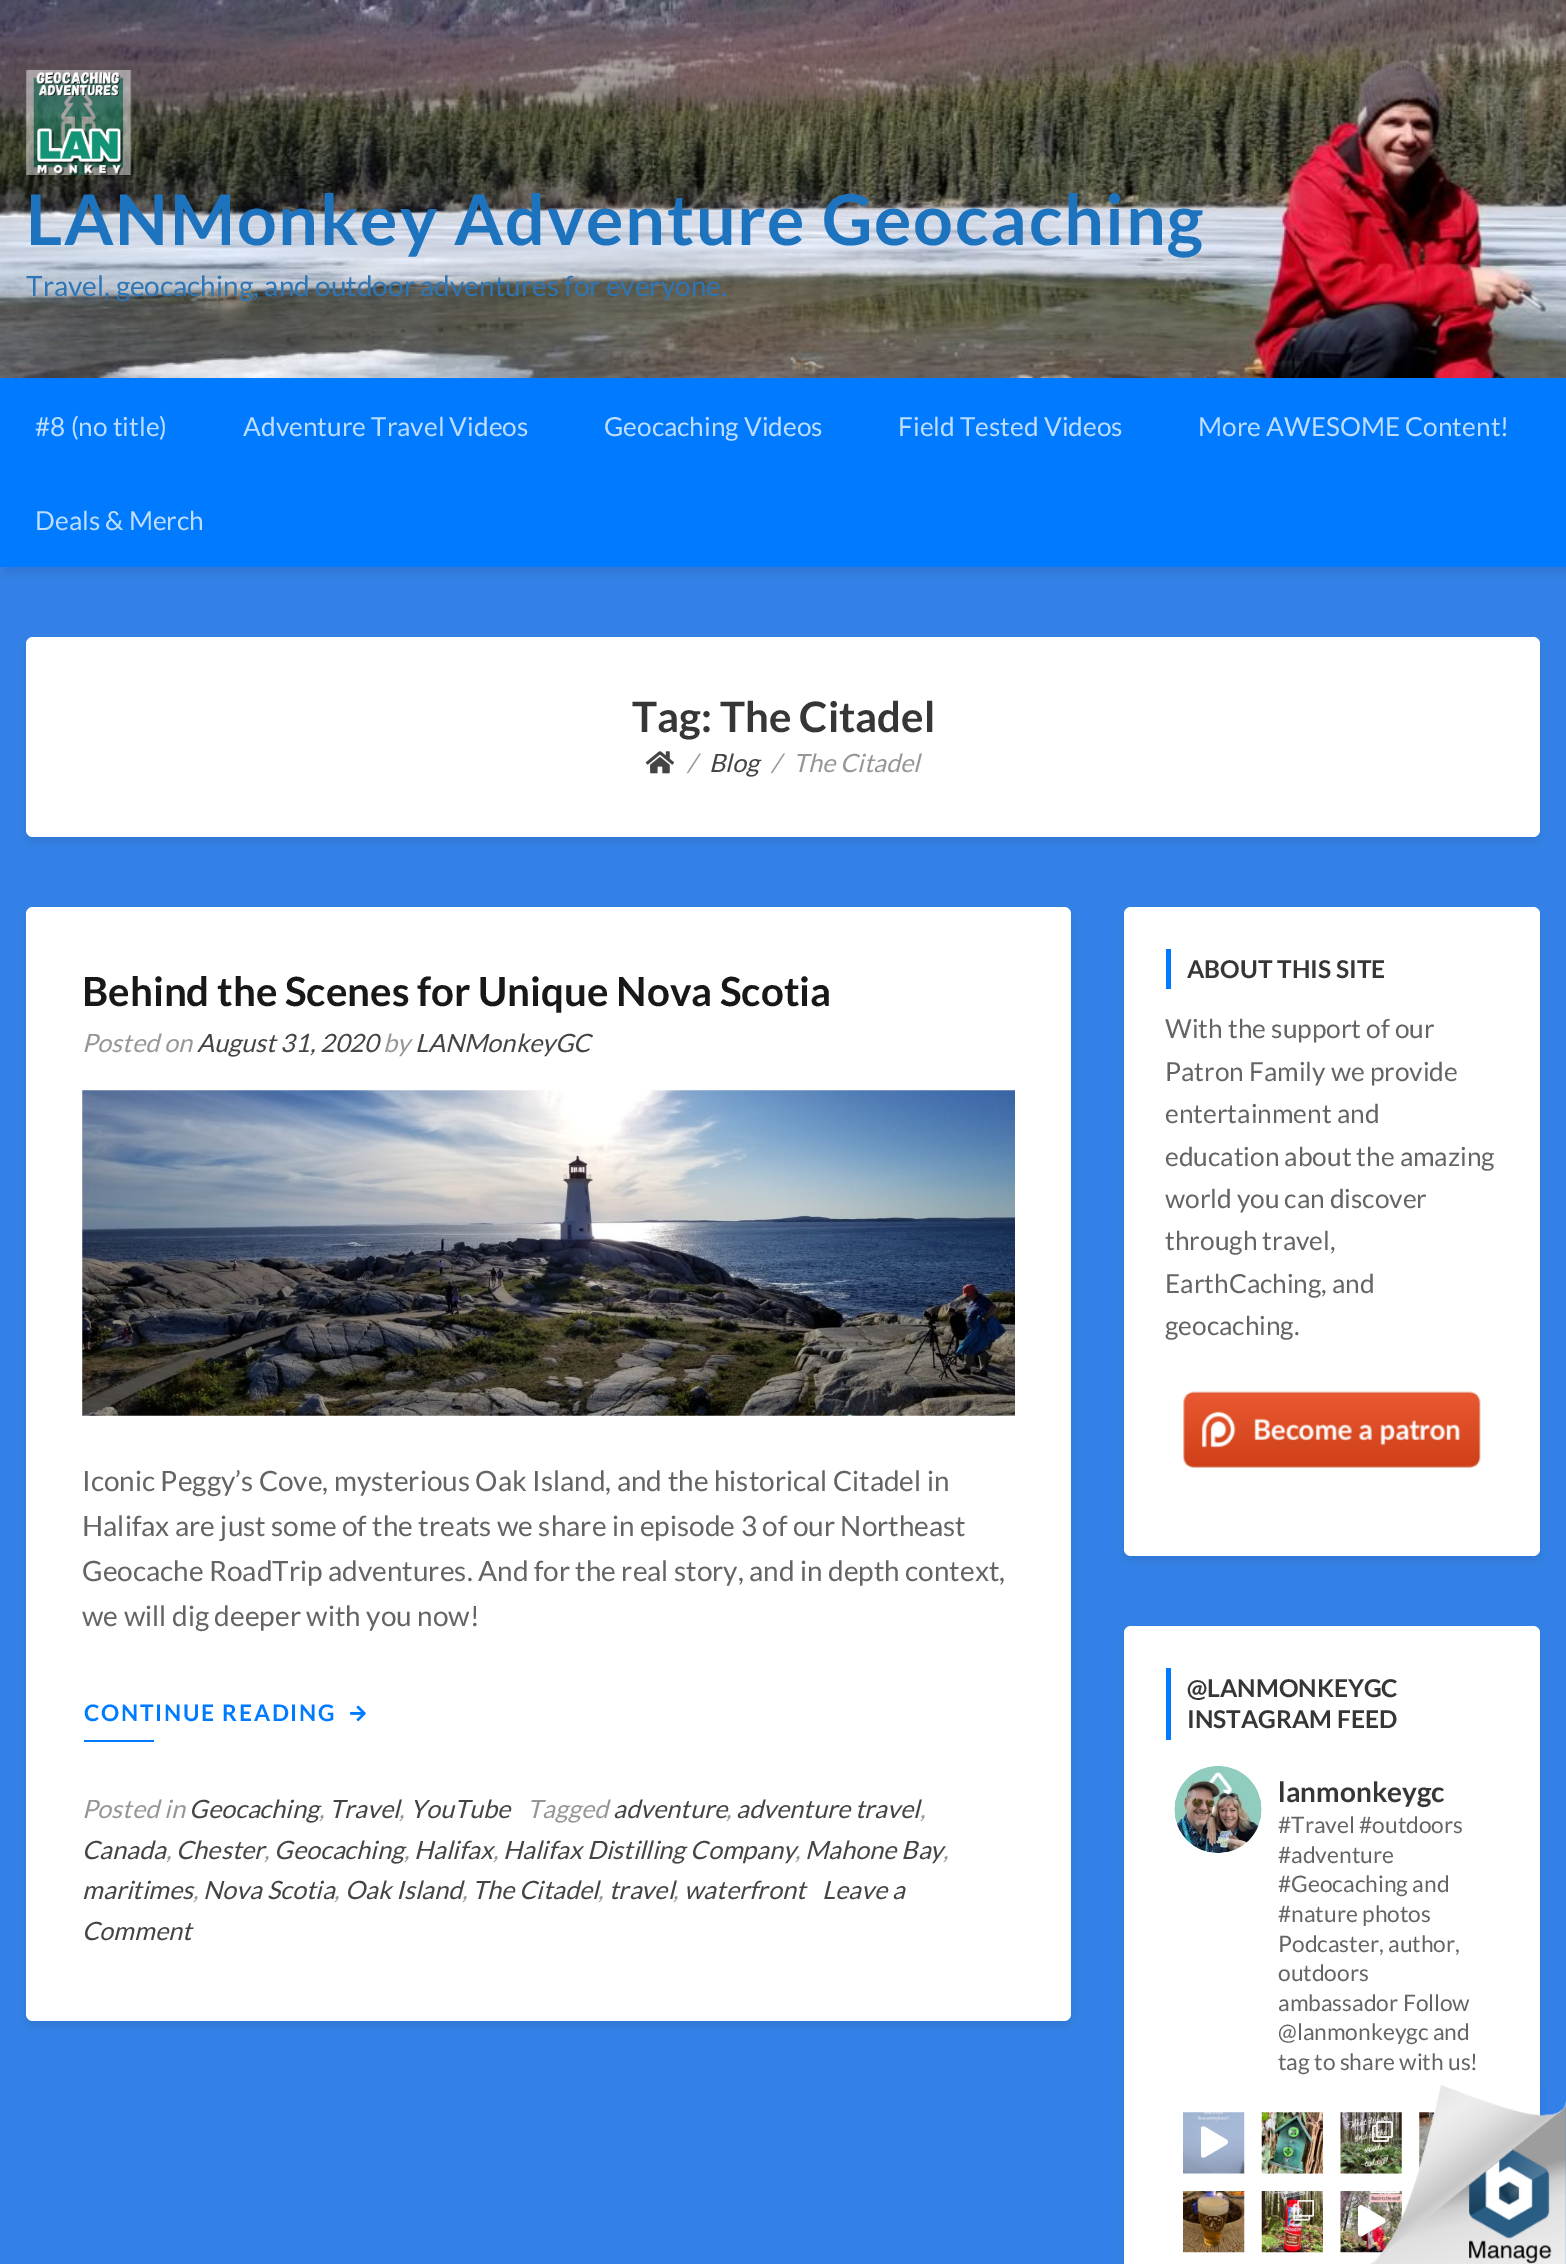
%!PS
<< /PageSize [1566 2264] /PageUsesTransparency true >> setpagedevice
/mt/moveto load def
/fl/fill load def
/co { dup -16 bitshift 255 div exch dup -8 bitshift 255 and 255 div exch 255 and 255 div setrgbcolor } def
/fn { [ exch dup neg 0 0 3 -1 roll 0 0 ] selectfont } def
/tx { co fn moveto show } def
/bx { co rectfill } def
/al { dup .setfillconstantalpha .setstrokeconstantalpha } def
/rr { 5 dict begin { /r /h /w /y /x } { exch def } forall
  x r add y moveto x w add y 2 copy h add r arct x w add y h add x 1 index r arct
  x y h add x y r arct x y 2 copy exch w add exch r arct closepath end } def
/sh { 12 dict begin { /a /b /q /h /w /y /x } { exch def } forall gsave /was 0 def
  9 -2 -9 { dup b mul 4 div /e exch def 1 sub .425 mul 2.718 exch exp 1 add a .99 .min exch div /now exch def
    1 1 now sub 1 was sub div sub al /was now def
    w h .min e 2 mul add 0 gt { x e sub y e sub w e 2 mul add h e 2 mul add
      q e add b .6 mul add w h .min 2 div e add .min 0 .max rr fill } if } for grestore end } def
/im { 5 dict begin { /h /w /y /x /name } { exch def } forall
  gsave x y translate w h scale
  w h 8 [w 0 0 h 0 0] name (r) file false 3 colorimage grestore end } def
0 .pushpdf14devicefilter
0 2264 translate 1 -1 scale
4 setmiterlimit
0 0 1566 2264 16#3381E8 bx
(media/1.raw) 0 0 1566 378 im
(media/2.raw) 26 70 106 105 im
16#141414 co
4 385 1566 189 0 5 .1 sh
0 378 1566 189 16#007BFF bx
16#141414 co
26 642 1514 200 7 5 .1 sh
16#FFFFFF co
26 637 1514 200 7 rr fl
(media/3.raw) 645 751 29 23 im
16#141414 co
26 912 1045 1115 7 5 .1 sh
16#FFFFFF co
26 907 1045 1114 7 rr fl
(media/4.raw) 82 1090 933 326 im
(media/5.raw) 350 1705 16 17 im
84 1740 70 2 16#007BFF bx
16#141414 co
1124 912 416 649 7 5 .1 sh
16#FFFFFF co
1124 907 416 649 7 rr fl
1166 949 5 40 16#007BFF bx
(media/6.raw) 1183 1391 298 77 im
16#141414 co
1124 1631 416 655 7 5 .1 sh
16#FFFFFF co
1124 1626 416 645 7 rr fl
1166 1668 5 72 16#007BFF bx
(media/7.raw) 1174 1766 88 87 im
(media/8.raw) 1183 2112 62 62 im
(media/9.raw) 1201 2126 27 32 im
(media/10.raw) 1261 2112 62 62 im
(media/11.raw) 1340 2112 62 62 im
(media/12.raw) 1372 2121 21 21 im
(media/13.raw) 1419 2112 17 60 im
(media/14.raw) 1183 2191 62 62 im
(media/15.raw) 1261 2191 62 62 im
(media/16.raw) 1293 2200 21 21 im
(media/17.raw) 1340 2191 62 62 im
(media/18.raw) 1358 2205 28 32 im
(media/19.raw) 1370 2085 196 179 im
/Lato-Bold 70 fn
16#1E73BE co
26 245 mt 1.75 0 (LANMonkey Adventure Geocaching) ashow
(Travel, geocaching, and outdoor adventures for everyone.) 26 296 /Lato-Regular 28 16#2D75B5 tx
(#8 \(no title\)) 35 436 /Lato-Regular 26.25 16#BFDEFF tx
(Adventure Travel Videos) 243 436 /Lato-Regular 26.25 16#BFDEFF tx
(Geocaching Videos) 604 436 /Lato-Regular 26.25 16#BFDEFF tx
(Field Tested Videos) 898 436 /Lato-Regular 26.25 16#BFDEFF tx
(More AWESOME Content!) 1198 436 /Lato-Regular 26.25 16#BFDEFF tx
(Deals & Merch) 35 530 /Lato-Regular 26.25 16#BFDEFF tx
(Tag: The Citadel) 632 732 /Lato-Bold 42 16#363636 tx
(/) 687 772 /Lato-Italic 25.25 16#969696 tx
(Blog) 709 772 /Lato-Italic 25.25 16#444444 tx
(/) 771 772 /Lato-Italic 25.25 16#969696 tx
(The Citadel) 793 772 /Lato-Italic 25.25 16#969696 tx
(Behind the Scenes for Unique Nova Scotia) 82 1006 /Lato-Bold 40.25 16#181818 tx
(Posted on) 82 1052 /Lato-Italic 25.25 16#969696 tx
(August 31, 2020) 197 1052 /Lato-Italic 25.25 16#444444 tx
(by) 383 1052 /Lato-Italic 25.25 16#969696 tx
(LANMonkeyGC) 415 1052 /Lato-Italic 25.25 16#444444 tx
(Iconic Peggy’s Cove, mysterious Oak Island, and the historical Citadel in) 82 1491 /Lato-Regular 28 16#646464 tx
(Halifax are just some of the treats we share in episode 3 of our Northeast) 82 1536 /Lato-Regular 28 16#646464 tx
(Geocache RoadTrip adventures. And for the real story, and in depth context,) 82 1581 /Lato-Regular 28 16#646464 tx
(we will dig deeper with you now!) 82 1626 /Lato-Regular 28 16#646464 tx
/Lato-Bold 22.75 fn
16#007BFF co
84 1721 mt 1.75 0 (CONTINUE READING) ashow
(Posted in) 82 1818 /Lato-Italic 25.25 16#969696 tx
(Geocaching) 189 1818 /Lato-Italic 25.25 16#444444 tx
(Travel) 329 1818 /Lato-Italic 25.25 16#444444 tx
(YouTube) 410 1818 /Lato-Italic 25.25 16#444444 tx
(Tagged) 527 1818 /Lato-Italic 25.25 16#969696 tx
(adventure) 613 1818 /Lato-Italic 25.25 16#444444 tx
(adventure travel) 736 1818 /Lato-Italic 25.25 16#444444 tx
(,) 319 1818 /Lato-Italic 25.25 16#969696 tx
(,) 399 1818 /Lato-Italic 25.25 16#969696 tx
(,) 726 1818 /Lato-Italic 25.25 16#969696 tx
(,) 920 1818 /Lato-Italic 25.25 16#969696 tx
(Canada) 82 1859 /Lato-Italic 25.25 16#444444 tx
(,) 166 1859 /Lato-Italic 25.25 16#969696 tx
(Chester) 176 1859 /Lato-Italic 25.25 16#444444 tx
(Geocaching) 274 1859 /Lato-Italic 25.25 16#444444 tx
(Halifax) 414 1859 /Lato-Italic 25.25 16#444444 tx
(Halifax Distilling Company) 503 1859 /Lato-Italic 25.25 16#444444 tx
(Mahone Bay) 805 1859 /Lato-Italic 25.25 16#444444 tx
(,) 264 1859 /Lato-Italic 25.25 16#969696 tx
(,) 404 1859 /Lato-Italic 25.25 16#969696 tx
(,) 493 1859 /Lato-Italic 25.25 16#969696 tx
(,) 795 1859 /Lato-Italic 25.25 16#969696 tx
(,) 943 1859 /Lato-Italic 25.25 16#969696 tx
(maritimes) 82 1899 /Lato-Italic 25.25 16#444444 tx
(,) 193 1899 /Lato-Italic 25.25 16#969696 tx
(Nova Scotia) 203 1899 /Lato-Italic 25.25 16#444444 tx
(,) 334 1899 /Lato-Italic 25.25 16#969696 tx
(Oak Island) 345 1899 /Lato-Italic 25.25 16#444444 tx
(The Citadel) 472 1899 /Lato-Italic 25.25 16#444444 tx
(travel) 609 1899 /Lato-Italic 25.25 16#444444 tx
(waterfront) 684 1899 /Lato-Italic 25.25 16#444444 tx
(Leave a) 822 1899 /Lato-Italic 25.25 16#444444 tx
(,) 462 1899 /Lato-Italic 25.25 16#969696 tx
(,) 598 1899 /Lato-Italic 25.25 16#969696 tx
(,) 673 1899 /Lato-Italic 25.25 16#969696 tx
(Comment) 82 1940 /Lato-Italic 25.25 16#444444 tx
(ABOUT THIS SITE) 1187 978 /Lato-Bold 24.5 16#363636 tx
(With the support of our) 1165 1038 /Lato-Regular 26.25 16#646464 tx
(Patron Family we provide) 1165 1081 /Lato-Regular 26.25 16#646464 tx
(entertainment and) 1165 1123 /Lato-Regular 26.25 16#646464 tx
(education about the amazing) 1165 1166 /Lato-Regular 26.25 16#646464 tx
(world you can discover) 1165 1208 /Lato-Regular 26.25 16#646464 tx
(through travel,) 1165 1250 /Lato-Regular 26.25 16#646464 tx
(EarthCaching, and) 1165 1293 /Lato-Regular 26.25 16#646464 tx
(geocaching.) 1165 1335 /Lato-Regular 26.25 16#646464 tx
(@LANMONKEYGC) 1187 1697 /Lato-Bold 24.5 16#363636 tx
(INSTAGRAM FEED) 1187 1728 /Lato-Bold 24.5 16#363636 tx
(lanmonkeygc) 1278 1802 /Lato-Bold 28 16#363636 tx
(#Travel #outdoors) 1278 1833 /Lato-Regular 22.75 16#646464 tx
(#adventure) 1278 1863 /Lato-Regular 22.75 16#646464 tx
(#Geocaching and) 1278 1892 /Lato-Regular 22.75 16#646464 tx
(#nature photos) 1278 1922 /Lato-Regular 22.75 16#646464 tx
(Podcaster, author,) 1278 1952 /Lato-Regular 22.75 16#646464 tx
(outdoors) 1278 1981 /Lato-Regular 22.75 16#646464 tx
(ambassador Follow) 1278 2011 /Lato-Regular 22.75 16#646464 tx
(@lanmonkeygc and) 1278 2040 /Lato-Regular 22.75 16#646464 tx
(tag to share with us!) 1278 2070 /Lato-Regular 22.75 16#646464 tx
.poppdf14devicefilter showpage
